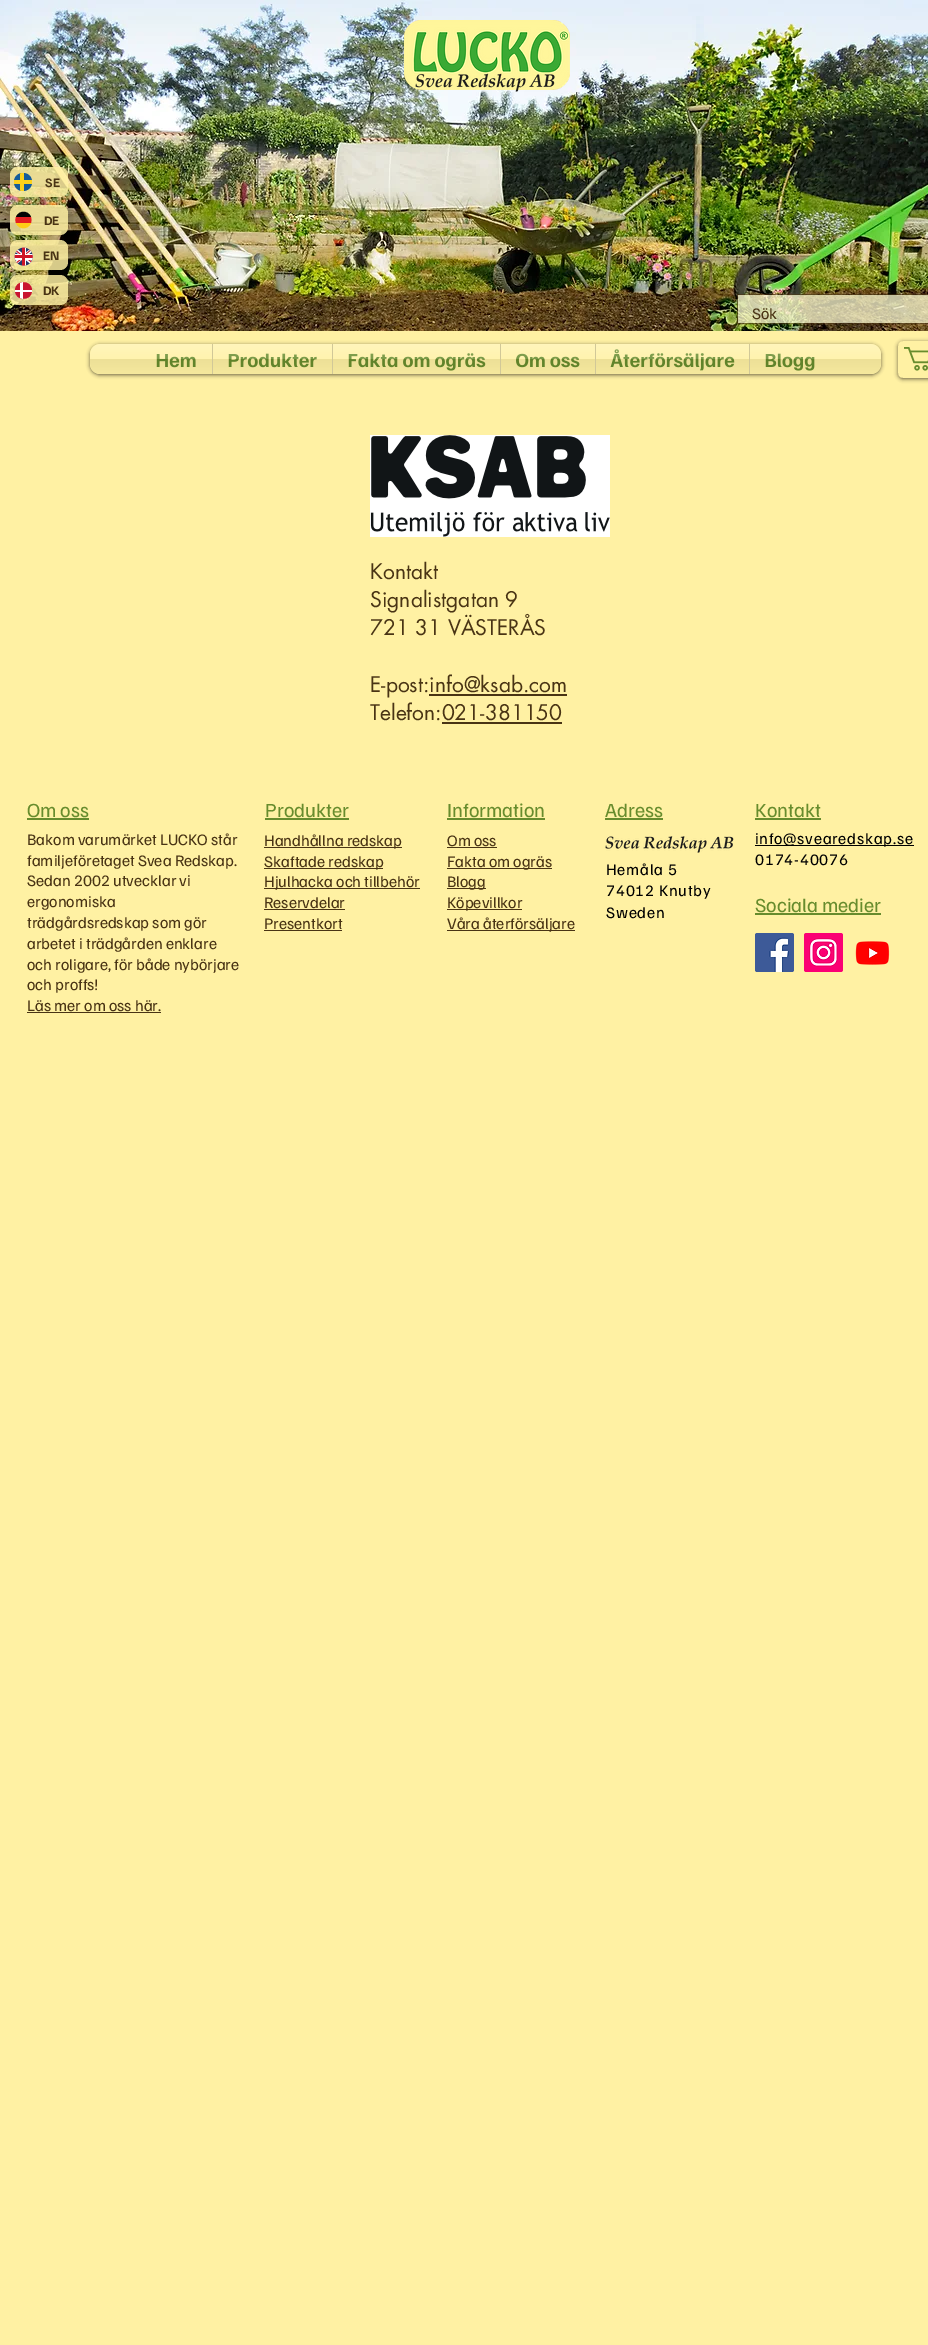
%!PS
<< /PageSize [928 2345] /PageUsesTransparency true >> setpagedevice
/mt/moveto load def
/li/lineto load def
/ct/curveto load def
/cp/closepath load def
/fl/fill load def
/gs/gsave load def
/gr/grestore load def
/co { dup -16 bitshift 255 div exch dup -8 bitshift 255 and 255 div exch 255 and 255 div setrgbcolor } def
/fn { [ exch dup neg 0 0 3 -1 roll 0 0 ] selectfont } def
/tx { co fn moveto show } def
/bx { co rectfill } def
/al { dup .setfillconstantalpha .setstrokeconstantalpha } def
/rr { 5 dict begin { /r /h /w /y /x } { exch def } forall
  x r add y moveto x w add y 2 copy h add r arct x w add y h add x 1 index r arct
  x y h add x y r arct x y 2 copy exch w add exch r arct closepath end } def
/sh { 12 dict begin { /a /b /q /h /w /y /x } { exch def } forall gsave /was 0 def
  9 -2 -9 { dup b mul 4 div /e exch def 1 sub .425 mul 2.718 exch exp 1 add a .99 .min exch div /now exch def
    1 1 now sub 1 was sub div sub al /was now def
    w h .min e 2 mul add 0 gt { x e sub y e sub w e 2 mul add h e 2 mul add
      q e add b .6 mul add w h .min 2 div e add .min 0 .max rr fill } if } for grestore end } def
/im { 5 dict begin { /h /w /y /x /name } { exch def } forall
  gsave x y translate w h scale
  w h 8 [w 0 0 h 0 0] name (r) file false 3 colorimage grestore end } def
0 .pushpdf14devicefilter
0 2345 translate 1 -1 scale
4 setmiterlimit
0 0 928 2345 16#FFF1A3 bx
(media/1.raw) 0 0 928 331 im
(media/2.raw) 404 20 166 70 im
(media/3.raw) 415 73 140 19 im
0.84 al
10 167 58 30 8 rr fl
1 al
16#145C9B co
32 182 mt 32 170 14 170 14 182 ct 14 194 32 194 32 182 ct cp fl
16#FCD21B co
32 182 mt 32 180 li 14 180 li 14 181.5 14 182.5 14 184 ct 32 184 li cp fl
24 173 mt 24 191 li 22.5 191 21.5 191 20 190.5 ct 20 173.5 li 21.5 173 22.5 173 24 173 ct cp fl
0.84 al
16#FFF1A3 co
10 205 58 30 8 rr fl
1 al
16#030304 co
31 217 mt 16 217 li 18.5 210 28.5 210 31 217 ct cp fl
16#E41D21 co
31.5 220 mt 31 217 li 16 217 li 15 219 15 221 16 223 ct 31 223 li cp fl
16#FECC17 co
31 223 mt 28.5 230 18.5 230 16 223 ct cp fl
0.84 al
16#FFF1A3 co
10 240 58 30 8 rr fl
1 al
(media/4.raw) 14 247 19 19 im
0.84 al
10 275 58 30 8 rr fl
1 al
16#C91530 co
32 290.5 mt 32 279.5 15 279.5 15 290.5 ct 15 301.5 32 301.5 32 290.5 ct cp fl
16#FFFFFF co
20 298 mt 20 283 li 23 282 li 23 299 li cp fl
32 290.5 mt 32 290 li 15 290 li 15 292 li 32 292 li cp fl
0.6 al
16#493414 co
737.5 294.5 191 29 rectstroke
0.77 al
738 295 190 28 16#F8F6CD bx
1 al
16#000000 co
90 345 791 30 10 2 .6 sh
16#FFF1A3 co
90 344 791 30 10 rr fl
(media/5.raw) 90 344 791 30 im
141 344 71 30 16#FFF1A3 bx
213 344 119 30 16#FFF1A3 bx
212 344 1 30 16#D1C898 bx
333 344 167 30 16#FFF1A3 bx
332 344 1 30 16#D1C898 bx
501 344 94 30 16#FFF1A3 bx
500 344 1 30 16#D1C898 bx
596 344 153 30 16#FFF1A3 bx
595 344 1 30 16#D1C898 bx
750 344 81 30 16#FFF1A3 bx
749 344 1 30 16#D1C898 bx
gs
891 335 mt 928 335 li 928 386 li 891 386 li cp 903 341 mt 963 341 li 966 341 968 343 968 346 ct 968 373 li 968 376 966 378 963 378 ct 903 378 li 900 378 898 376 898 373 ct 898 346 li 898 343 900 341 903 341 ct cp eoclip newpath
16#000000 co
898 342 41 37 5 2 .6 sh
gr
0.78 al
16#FFF1A3 co
898 341 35 37 5 rr fl
1 al
(media/12.raw) 904 347 24 24 im
(media/13.raw) 370 435 240 102 im
429 694 138 2 16#493414 bx
442 722 120 2 16#493414 bx
27 818 62 2 16#678C2D bx
27 1012 134 1 16#493414 bx
265 818 84 2 16#678C2D bx
264 847 138 1 16#493414 bx
264 868 119 1 16#493414 bx
264 888 156 1 16#493414 bx
264 909 81 1 16#493414 bx
264 930 78 1 16#493414 bx
447 818 98 2 16#678C2D bx
447 847 50 1 16#493414 bx
447 868 105 1 16#493414 bx
447 888 39 1 16#493414 bx
447 909 75 1 16#493414 bx
447 930 128 1 16#493414 bx
605 818 58 2 16#678C2D bx
(media/14.raw) 605 836 129 17 im
755 818 66 2 16#678C2D bx
755 845 159 1 16#000000 bx
755 913 126 2 16#678C2D bx
(media/15.raw) 755 933 39 39 im
(media/16.raw) 804 933 39 39 im
(media/17.raw) 855 941 35 24 im
(SE) 45 187 /FamiljenGrotesk-Bold 13 16#493414 tx
(DE) 44 225 /FamiljenGrotesk-Bold 13 16#493414 tx
(EN) 43 260 /FamiljenGrotesk-Bold 13 16#493414 tx
(DK) 43 295 /FamiljenGrotesk-Bold 13 16#493414 tx
(Sök) 752 319 /FamiljenGrotesk-Regular 16 16#493414 tx
(Hem) 156 367 /FamiljenGrotesk-Bold 20 16#678C2D tx
(media/6.raw) 141 344 71 30 im
(Produkter) 228 367 /FamiljenGrotesk-Bold 20 16#678C2D tx
(media/7.raw) 213 344 119 30 im
(Fakta om ogräs) 348 367 /FamiljenGrotesk-Bold 20 16#678C2D tx
(media/8.raw) 333 344 167 30 im
(Om oss) 516 367 /FamiljenGrotesk-Bold 20 16#678C2D tx
(media/9.raw) 501 344 94 30 im
(Återförsäljare) 611 367 /FamiljenGrotesk-Bold 20 16#678C2D tx
(media/10.raw) 596 344 153 30 im
(Blogg) 765 367 /FamiljenGrotesk-Bold 20 16#678C2D tx
(media/11.raw) 750 344 81 30 im
(Kontakt) 370 579 /futura-Regular 21 16#493414 tx
(Signalistgatan 9) 370 607 /futura-Regular 21 16#493414 tx
(721 31 VÄSTERÅS) 370 635 /futura-Regular 21 16#493414 tx
(E-post:info@ksab.com) 370 692 /futura-Regular 21 16#493414 tx
(Telefon:021-381150) 370 720 /futura-Regular 21 16#493414 tx
(Om oss) 27 817 /FamiljenGrotesk-Regular 20 16#678C2D tx
(Bakom varumärket LUCKO står) 27 845 /FamiljenGrotesk-Regular 16 16#493414 tx
(familjeföretaget Svea Redskap.) 27 866 /FamiljenGrotesk-Regular 16 16#493414 tx
(Sedan 2002 utvecklar vi) 27 886 /FamiljenGrotesk-Regular 16 16#493414 tx
(ergonomiska) 27 907 /FamiljenGrotesk-Regular 16 16#493414 tx
(trädgårdsredskap som gör) 27 928 /FamiljenGrotesk-Regular 16 16#493414 tx
(arbetet i trädgården enklare) 27 949 /FamiljenGrotesk-Regular 16 16#493414 tx
(och roligare, för både nybörjare) 27 970 /FamiljenGrotesk-Regular 16 16#493414 tx
(och proffs!) 27 990 /FamiljenGrotesk-Regular 16 16#493414 tx
(Läs mer om oss här.) 27 1011 /FamiljenGrotesk-Regular 16 16#493414 tx
(Produkter) 265 817 /FamiljenGrotesk-Regular 20 16#678C2D tx
(Handhållna redskap) 264 846 /FamiljenGrotesk-Regular 16 16#493414 tx
(Skaftade redskap) 264 867 /FamiljenGrotesk-Regular 16 16#493414 tx
(Hjulhacka och tillbehör) 264 887 /FamiljenGrotesk-Regular 16 16#493414 tx
(Reservdelar) 264 908 /FamiljenGrotesk-Regular 16 16#493414 tx
(Presentkort) 264 929 /FamiljenGrotesk-Regular 16 16#493414 tx
(Information) 447 817 /FamiljenGrotesk-Regular 20 16#678C2D tx
(Om oss) 447 846 /FamiljenGrotesk-Regular 16 16#493414 tx
(Fakta om ogräs) 447 867 /FamiljenGrotesk-Regular 16 16#493414 tx
(Blogg) 447 887 /FamiljenGrotesk-Regular 16 16#493414 tx
(Köpevillkor) 447 908 /FamiljenGrotesk-Regular 16 16#493414 tx
(Våra återförsäljare) 447 929 /FamiljenGrotesk-Regular 16 16#493414 tx
(Adress) 605 817 /FamiljenGrotesk-Regular 20 16#678C2D tx
/FamiljenGrotesk-Regular 16 fn
16#000000 co
606 875 mt .75 0 (Hemåla 5) ashow
606 896 mt .75 0 (74012 Knutby) ashow
606 918 mt .75 0 (Sweden) ashow
(Kontakt) 755 817 /FamiljenGrotesk-Regular 20 16#678C2D tx
/FamiljenGrotesk-Regular 16 fn
16#000000 co
755 844 mt .75 0 (info@svearedskap.se) ashow
755 865 mt .75 0 (0174-40076) ashow
(Sociala medier) 755 912 /FamiljenGrotesk-Regular 20 16#678C2D tx
.poppdf14devicefilter showpage
